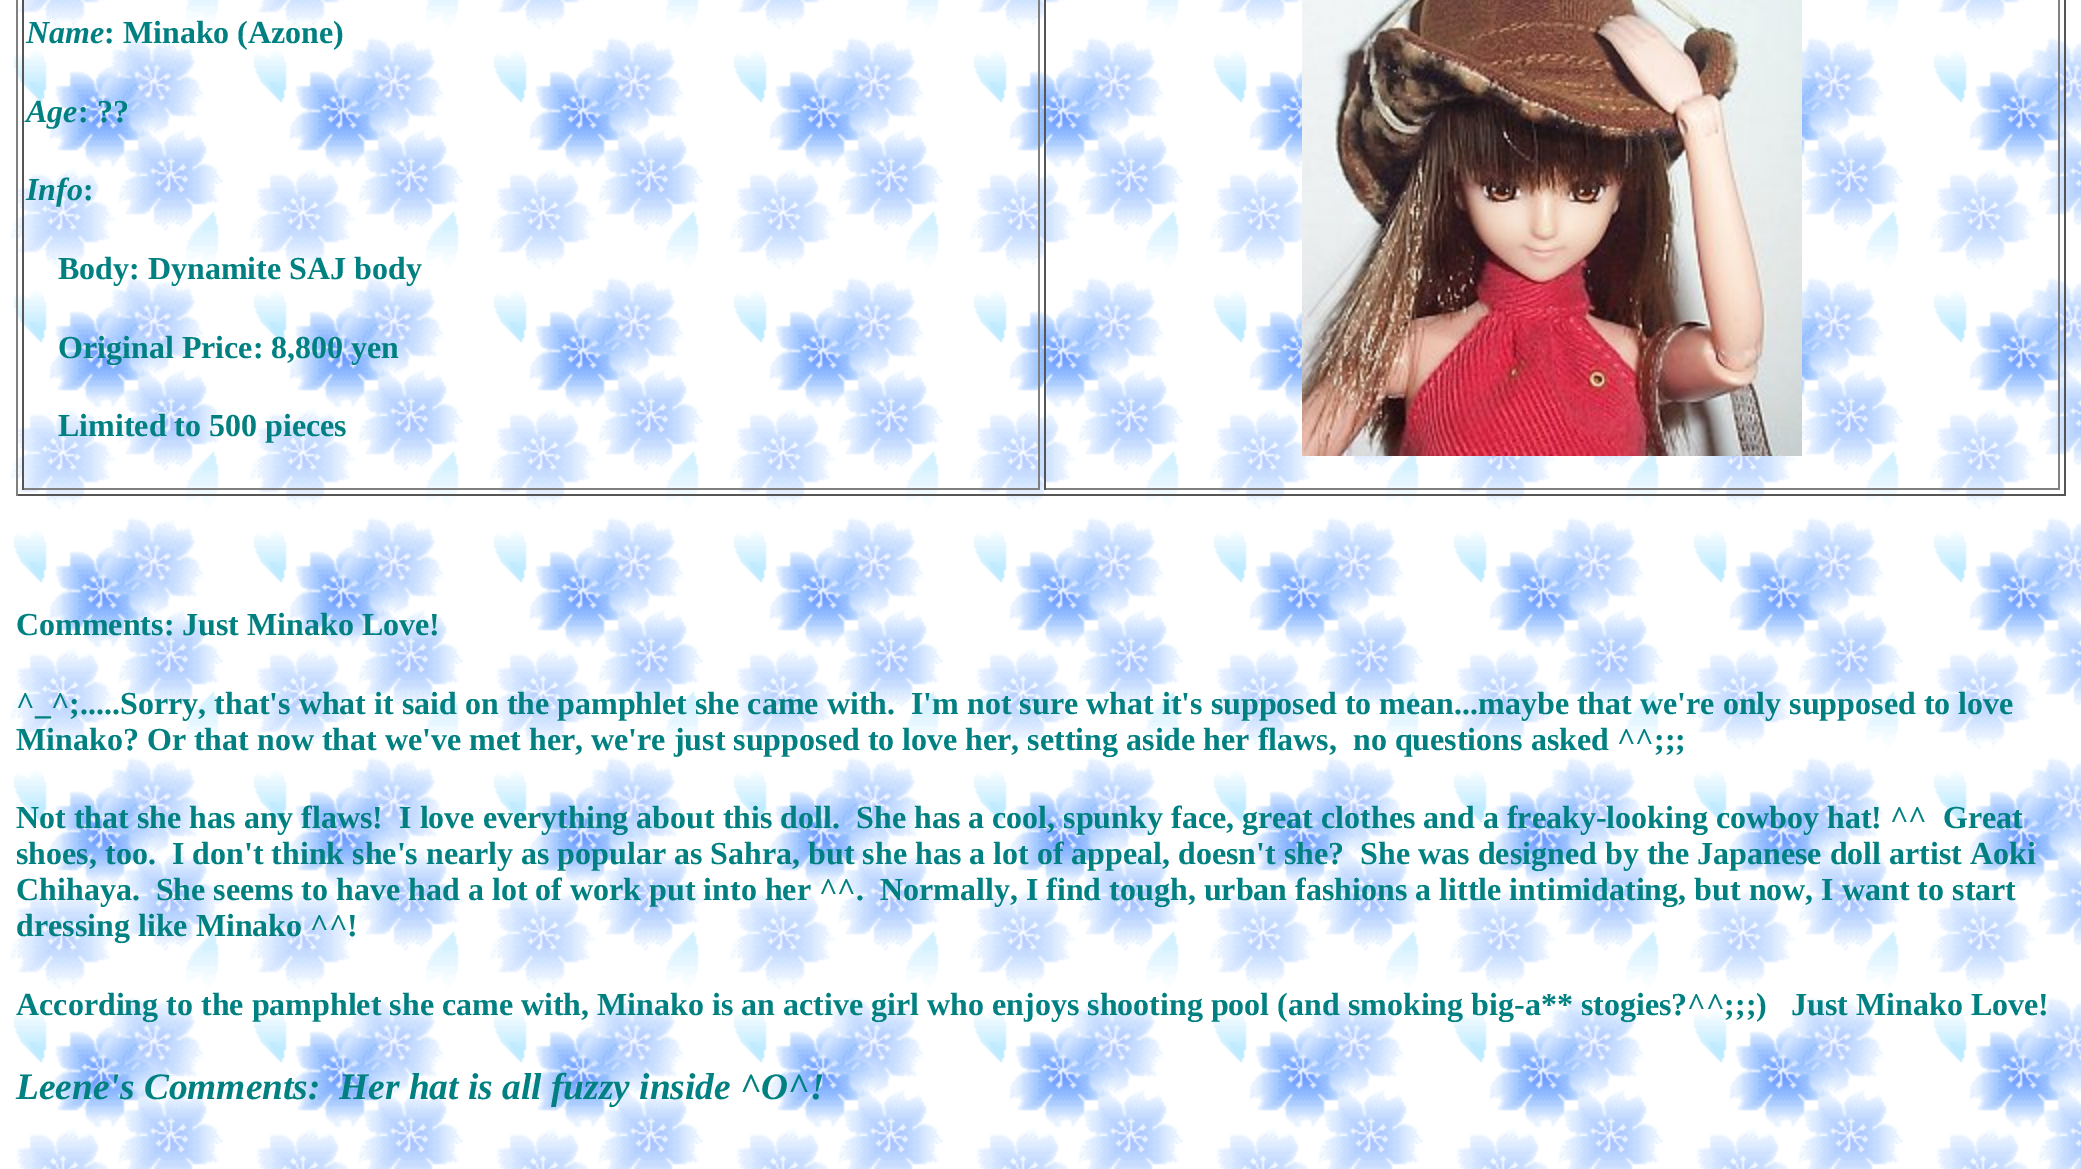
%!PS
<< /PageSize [2081 1169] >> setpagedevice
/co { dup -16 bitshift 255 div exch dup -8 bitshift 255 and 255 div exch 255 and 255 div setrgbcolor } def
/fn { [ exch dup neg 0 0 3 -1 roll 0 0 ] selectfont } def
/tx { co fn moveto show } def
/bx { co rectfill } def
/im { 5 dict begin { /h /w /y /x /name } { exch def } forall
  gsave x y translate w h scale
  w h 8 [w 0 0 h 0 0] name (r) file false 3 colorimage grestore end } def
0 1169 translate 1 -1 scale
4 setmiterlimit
0 0 2081 1169 16#FFFFFF bx
(media/1.raw) 10 0 2071 1169 im
2064 0 2 496 16#555555 bx
16 494 2050 2 16#555555 bx
16 0 2 496 16#808080 bx
1038 0 2 490 16#808080 bx
22 488 1018 2 16#808080 bx
22 0 2 490 16#555555 bx
2058 0 2 490 16#808080 bx
1044 488 1016 2 16#808080 bx
1044 0 2 490 16#555555 bx
(media/2.raw) 1302 0 500 456 im
(Name) 26 43 /LiberationSerif-BoldItalic 32 16#008080 tx
(: Minako \(Azone\)) 104 43 /LiberationSerif-Bold 32 16#008080 tx
(Age) 26 122 /LiberationSerif-BoldItalic 32 16#008080 tx
(: ??) 78 122 /LiberationSerif-Bold 32 16#008080 tx
(Info) 26 200 /LiberationSerif-BoldItalic 32 16#008080 tx
(:) 83 200 /LiberationSerif-Bold 32 16#008080 tx
(Body: Dynamite SAJ body) 58 279 /LiberationSerif-Bold 32 16#008080 tx
(Original Price: 8,800 yen) 58 358 /LiberationSerif-Bold 32 16#008080 tx
(Limited to 500 pieces) 58 436 /LiberationSerif-Bold 32 16#008080 tx
(Comments: Just Minako Love!) 16 635 /LiberationSerif-Bold 32 16#008080 tx
(^_^;.....Sorry, that's what it said on the pamphlet she came with.  I'm not sure what it's supposed to mean...maybe that we're only supposed to love) 16 714 /LiberationSerif-Bold 32 16#008080 tx
(Minako? Or that now that we've met her, we're just supposed to love her, setting aside her flaws,  no questions asked ^^;;;) 16 750 /LiberationSerif-Bold 32 16#008080 tx
(Not that she has any flaws!  I love everything about this doll.  She has a cool, spunky face, great clothes and a freaky-looking cowboy hat! ^^  Great) 16 828 /LiberationSerif-Bold 32 16#008080 tx
(shoes, too.  I don't think she's nearly as popular as Sahra, but she has a lot of appeal, doesn't she?  She was designed by the Japanese doll artist Aoki) 16 864 /LiberationSerif-Bold 32 16#008080 tx
(Chihaya.  She seems to have had a lot of work put into her ^^.  Normally, I find tough, urban fashions a little intimidating, but now, I want to start) 16 900 /LiberationSerif-Bold 32 16#008080 tx
(dressing like Minako ^^!) 16 936 /LiberationSerif-Bold 32 16#008080 tx
(According to the pamphlet she came with, Minako is an active girl who enjoys shooting pool \(and smoking big-a** stogies?^^;;;\)   Just Minako Love!) 16 1015 /LiberationSerif-Bold 32 16#008080 tx
(Leene's Comments:  Her hat is all fuzzy inside ^O^!) 16 1099 /LiberationSerif-BoldItalic 37.4 16#008080 tx
showpage
